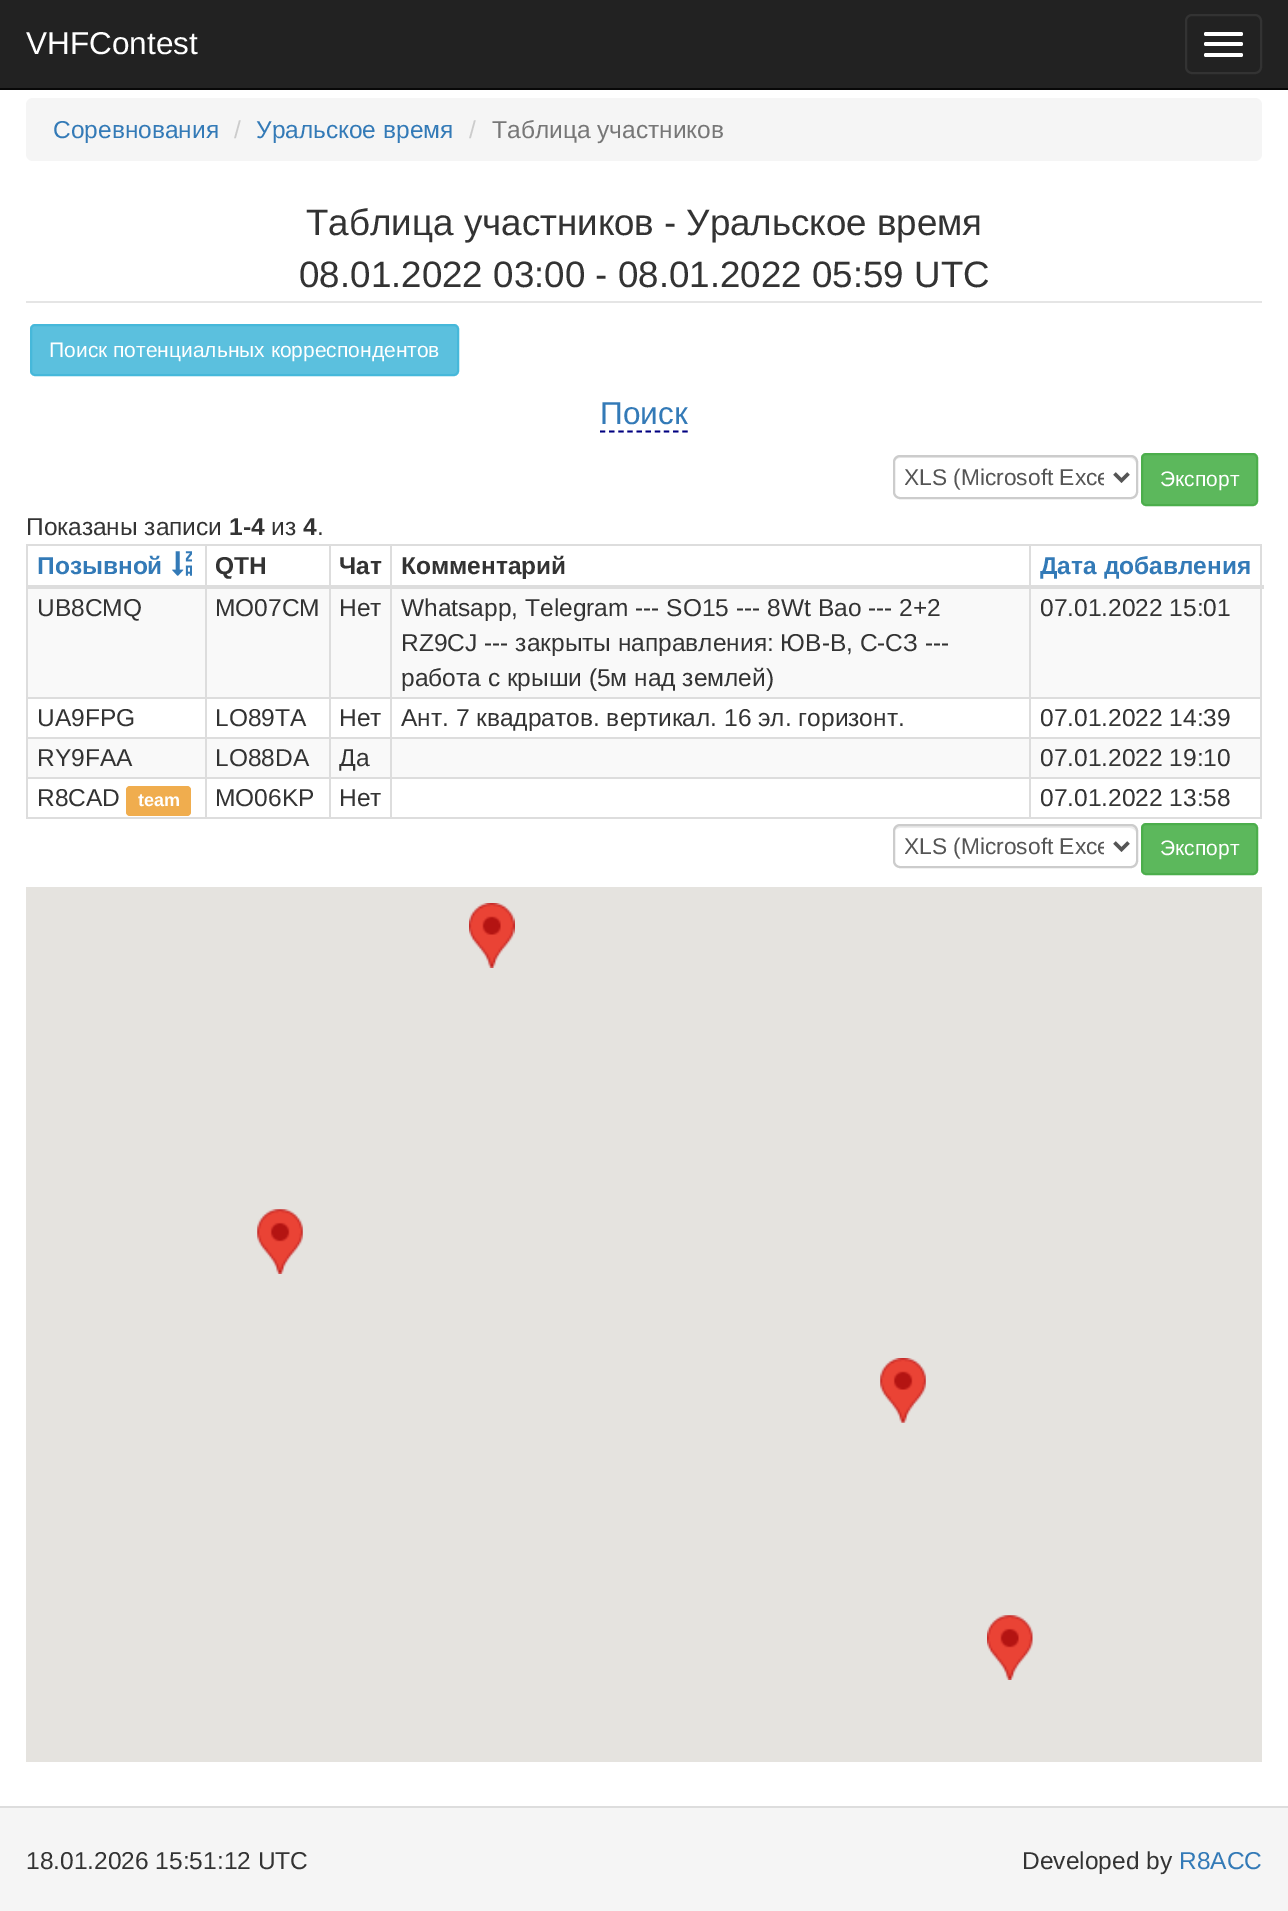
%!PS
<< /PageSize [1288 1911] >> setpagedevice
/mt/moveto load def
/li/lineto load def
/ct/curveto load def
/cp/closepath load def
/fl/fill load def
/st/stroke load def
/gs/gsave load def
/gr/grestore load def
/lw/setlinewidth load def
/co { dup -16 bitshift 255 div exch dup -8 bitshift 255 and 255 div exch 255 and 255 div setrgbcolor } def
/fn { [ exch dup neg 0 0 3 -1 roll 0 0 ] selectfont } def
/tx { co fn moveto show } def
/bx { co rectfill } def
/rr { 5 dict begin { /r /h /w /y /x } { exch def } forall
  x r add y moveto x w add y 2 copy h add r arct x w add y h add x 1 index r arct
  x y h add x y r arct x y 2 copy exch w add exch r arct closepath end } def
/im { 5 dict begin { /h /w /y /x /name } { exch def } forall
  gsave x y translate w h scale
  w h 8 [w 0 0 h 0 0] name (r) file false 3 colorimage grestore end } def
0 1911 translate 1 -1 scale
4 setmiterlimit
0 0 1288 1911 16#FFFFFF bx
0 0 1288 88 16#222222 bx
0 88 1288 2 16#080808 bx
16#333333 co
2 lw
1186 15 75 58 6 rr st
16#FFFFFF co
1204 32 39 4 2 rr fl
1204 42 39 4 2 rr fl
1204 53 39 4 2 rr fl
16#F5F5F5 co
26 98 1236 63 7 rr fl
26 301 1236 2 16#E5E5E5 bx
16#5BC0DE co
31 325 427 50 4 rr gs fl gr
16#46B8DA co
st
16#000080 co
1.8 lw
[5.25 3.89] 0 setdash
600 431.5 mt 688 431.5 li st
16#ECECEC co
900 458 mt 1130 458 li 1133 458 1136 461 1136 464 ct 1136 461 1136 458 1132 457 ct 898 457 li 894 458 894 461 894 464 ct 894 461 897 458 900 458 ct cp fl
16#CCCCCC co
2 lw
[] 0 setdash
894 456 243 42 6 rr st
16#555555 co
3.5 lw
1114.5 473.5 mt 1121.5 480.5 li 1128.5 473.5 li st
16#5CB85C co
1142 454 115 51 4 rr gs fl gr
16#4CAE4C co
2 lw
st
26 544 1236 2 16#DDDDDD bx
1260 544 2 275 16#DDDDDD bx
26 817 1236 2 16#DDDDDD bx
26 544 2 275 16#DDDDDD bx
(media/1.raw) 172 551 20 25 im
28 589 1232 108 16#F9F9F9 bx
1029 697 233 2 16#DDDDDD bx
1029 737 233 2 16#DDDDDD bx
28 739 1232 38 16#F9F9F9 bx
1029 777 233 2 16#DDDDDD bx
1029 777 2 42 16#DDDDDD bx
390 777 641 2 16#DDDDDD bx
1029 737 2 42 16#DDDDDD bx
390 737 641 2 16#DDDDDD bx
1029 697 2 42 16#DDDDDD bx
390 697 641 2 16#DDDDDD bx
390 777 2 42 16#DDDDDD bx
329 777 63 2 16#DDDDDD bx
390 737 2 42 16#DDDDDD bx
329 737 63 2 16#DDDDDD bx
390 697 2 42 16#DDDDDD bx
329 697 63 2 16#DDDDDD bx
329 777 2 42 16#DDDDDD bx
205 777 126 2 16#DDDDDD bx
329 737 2 42 16#DDDDDD bx
205 737 126 2 16#DDDDDD bx
329 697 2 42 16#DDDDDD bx
205 697 126 2 16#DDDDDD bx
205 777 2 42 16#DDDDDD bx
26 777 181 2 16#DDDDDD bx
205 737 2 42 16#DDDDDD bx
26 737 181 2 16#DDDDDD bx
205 697 2 42 16#DDDDDD bx
26 697 181 2 16#DDDDDD bx
205 544 2 154 16#DDDDDD bx
329 544 2 154 16#DDDDDD bx
390 544 2 154 16#DDDDDD bx
1029 544 2 154 16#DDDDDD bx
26 585 1238 4 16#DDDDDD bx
16#F0AD4E co
126 786 65 30 4 rr fl
16#ECECEC co
900 828 mt 1130 828 li 1133 828 1136 830 1136 833 ct 1136 830 1136 827 1132 826 ct 898 826 li 894 827 894 830 894 833 ct 894 830 897 828 900 828 ct cp fl
16#CCCCCC co
894 825 243 42 6 rr st
16#555555 co
3.5 lw
1114.5 842.5 mt 1121.5 849.5 li 1128.5 842.5 li st
16#5CB85C co
1142 824 115 50 4 rr gs fl gr
16#4CAE4C co
2 lw
st
26 887 1236 875 16#E5E3DF bx
(media/2.raw) 469 903 46 65 im
(media/3.raw) 257 1209 46 65 im
(media/4.raw) 880 1358 46 65 im
(media/5.raw) 987 1615 46 65 im
0 1808 1288 103 16#F5F5F5 bx
0 1806 1288 2 16#DDDDDD bx
(VHFContest) 26 54 /LiberationSans-Regular 31.5 16#FFFFFF tx
(Соревнования) 53 138 /LiberationSans-Regular 24.5 16#337AB7 tx
(/) 234 138 /LiberationSans-Regular 24.5 16#CCCCCC tx
(Уральское время) 256 138 /LiberationSans-Regular 24.5 16#337AB7 tx
(/) 469 138 /LiberationSans-Regular 24.5 16#CCCCCC tx
(Таблица участников) 492 138 /LiberationSans-Regular 24.5 16#777777 tx
(Таблица участников - Уральское время) 306 235 /LiberationSans-Regular 36.75 16#333333 tx
(08.01.2022 03:00 - 08.01.2022 05:59 UTC) 299 287 /LiberationSans-Regular 36.75 16#333333 tx
(Поиск потенциальных корреспондентов) 49 357 /LiberationSans-Regular 21 16#FFFFFF tx
(Поиск) 600 424 /LiberationSans-Regular 31.5 16#337AB7 tx
gs
905 462 199 30 rectclip
(XLS \(Microsoft Exce) 904 485 /LiberationSans-Regular 22.75 16#555555 tx
gr
(Экспорт) 1160 486 /LiberationSans-Regular 21 16#FFFFFF tx
(Показаны записи) 26 535 /LiberationSans-Regular 24.5 16#333333 tx
(1-4) 229 535 /LiberationSans-Bold 24.5 16#333333 tx
(из) 271 535 /LiberationSans-Regular 24.5 16#333333 tx
(4) 303 535 /LiberationSans-Bold 24.5 16#333333 tx
(.) 317 535 /LiberationSans-Regular 24.5 16#333333 tx
(Позывной) 37 574 /LiberationSans-Bold 24.5 16#337AB7 tx
(QTH) 215 574 /LiberationSans-Bold 24.5 16#333333 tx
(Чат) 339 574 /LiberationSans-Bold 24.5 16#333333 tx
(Комментарий) 401 574 /LiberationSans-Bold 24.5 16#333333 tx
(Дата добавления) 1040 574 /LiberationSans-Bold 24.5 16#337AB7 tx
(UB8CMQ) 37 616 /LiberationSans-Regular 24.5 16#333333 tx
(MO07CM) 215 616 /LiberationSans-Regular 24.5 16#333333 tx
(Нет) 339 616 /LiberationSans-Regular 24.5 16#333333 tx
(Whatsapp, Telegram --- SO15 --- 8Wt Bao --- 2+2) 401 616 /LiberationSans-Regular 24.5 16#333333 tx
(RZ9CJ --- закрыты направления: ЮВ-В, С-СЗ ---) 401 651 /LiberationSans-Regular 24.5 16#333333 tx
(работа с крыши \(5м над землей\)) 401 686 /LiberationSans-Regular 24.5 16#333333 tx
(07.01.2022 15:01) 1040 616 /LiberationSans-Regular 24.5 16#333333 tx
(UA9FPG) 37 726 /LiberationSans-Regular 24.5 16#333333 tx
(LO89TA) 215 726 /LiberationSans-Regular 24.5 16#333333 tx
(Нет) 339 726 /LiberationSans-Regular 24.5 16#333333 tx
(Ант. 7 квадратов. вертикал. 16 эл. горизонт.) 401 726 /LiberationSans-Regular 24.5 16#333333 tx
(07.01.2022 14:39) 1040 726 /LiberationSans-Regular 24.5 16#333333 tx
(RY9FAA) 37 766 /LiberationSans-Regular 24.5 16#333333 tx
(LO88DA) 215 766 /LiberationSans-Regular 24.5 16#333333 tx
(Да) 339 766 /LiberationSans-Regular 24.5 16#333333 tx
(07.01.2022 19:10) 1040 766 /LiberationSans-Regular 24.5 16#333333 tx
(R8CAD) 37 806 /LiberationSans-Regular 24.5 16#333333 tx
(team) 138 806 /LiberationSans-Bold 18 16#FFFFFF tx
(MO06KP) 215 806 /LiberationSans-Regular 24.5 16#333333 tx
(Нет) 339 806 /LiberationSans-Regular 24.5 16#333333 tx
(07.01.2022 13:58) 1040 806 /LiberationSans-Regular 24.5 16#333333 tx
gs
905 831 199 30 rectclip
(XLS \(Microsoft Exce) 904 854 /LiberationSans-Regular 22.75 16#555555 tx
gr
(Экспорт) 1160 855 /LiberationSans-Regular 21 16#FFFFFF tx
(18.01.2026 15:51:12 UTC) 26 1869 /LiberationSans-Regular 24.5 16#333333 tx
(Developed by) 1022 1869 /LiberationSans-Regular 24.5 16#333333 tx
(R8ACC) 1179 1869 /LiberationSans-Regular 24.5 16#337AB7 tx
showpage
